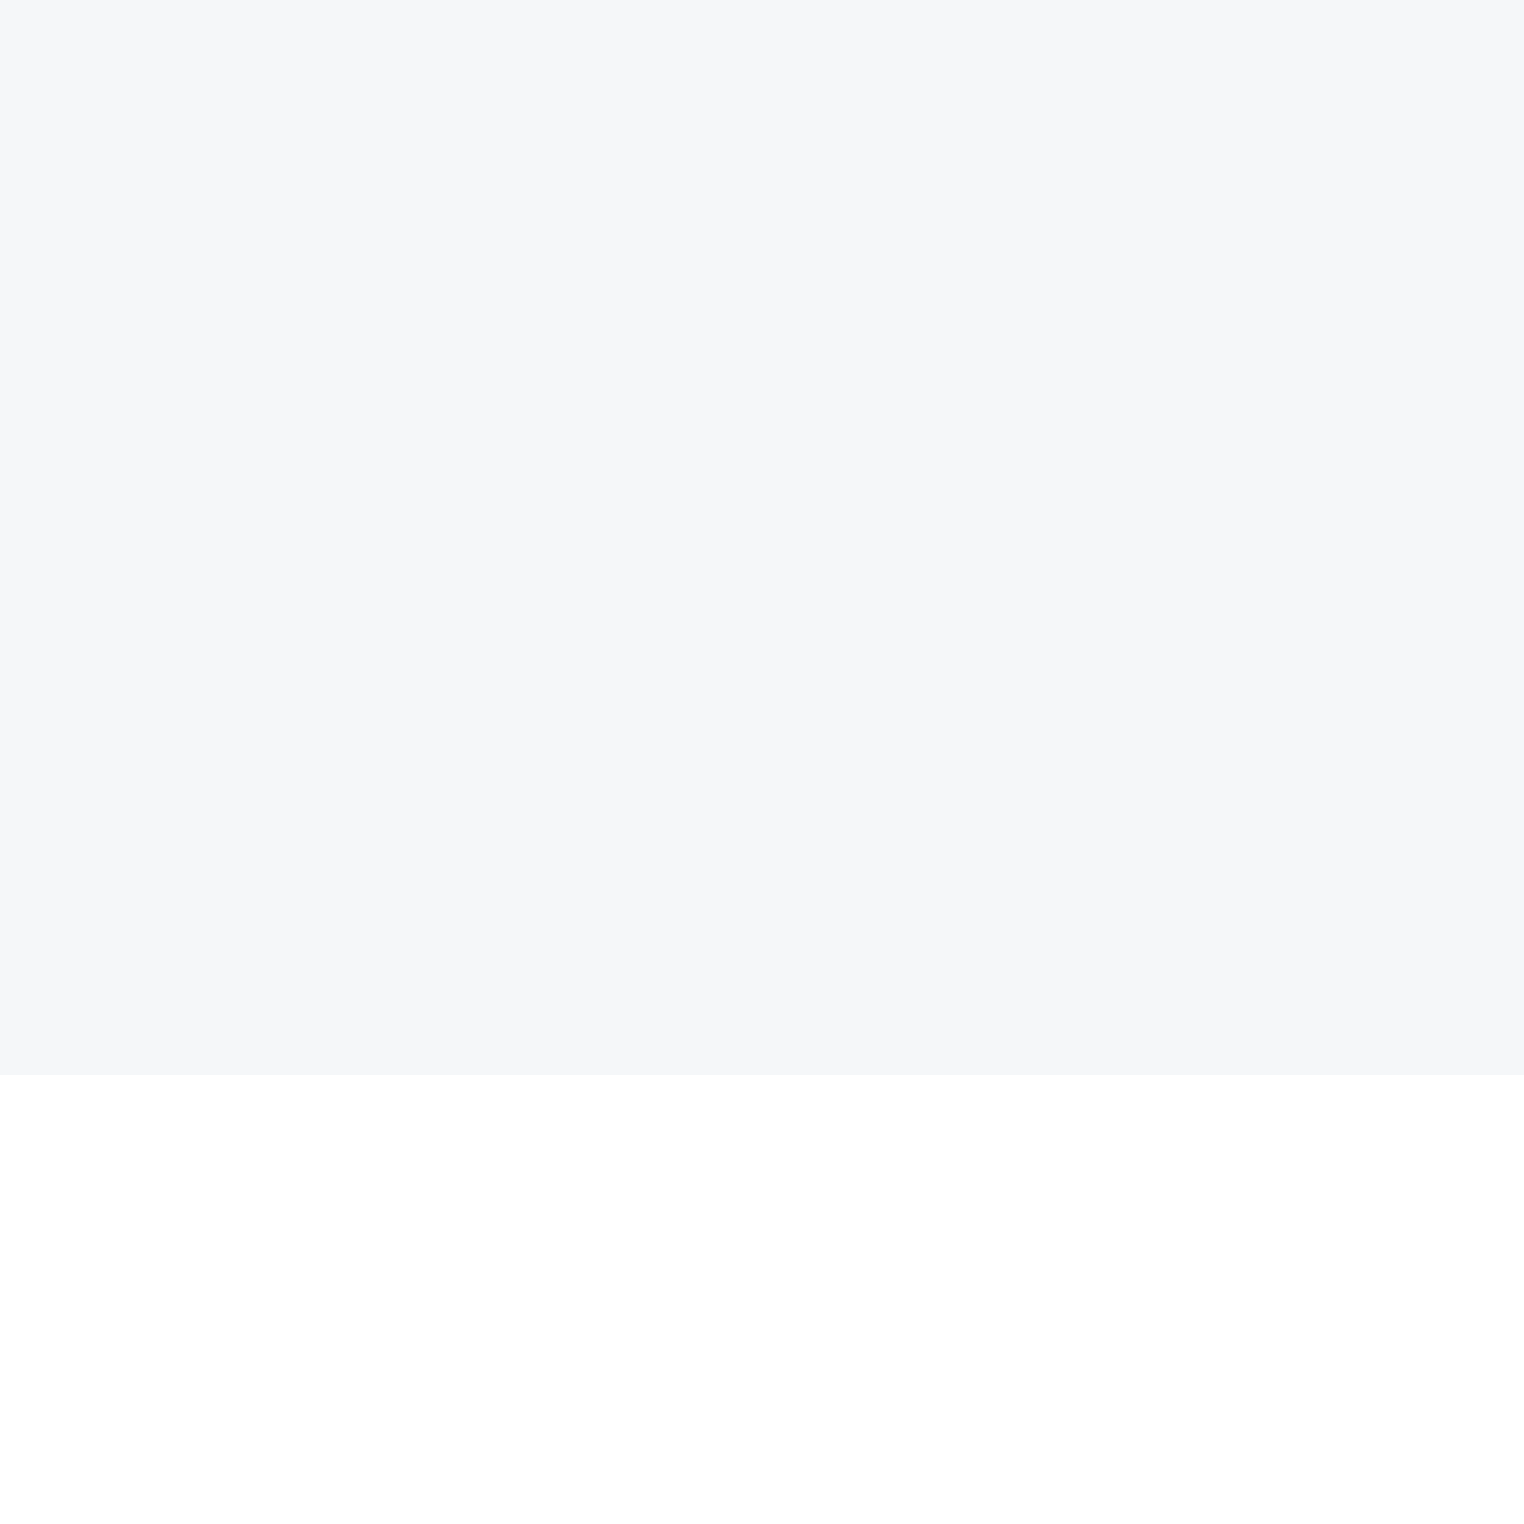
%!PS
<< /PageSize [1524 1524] >> setpagedevice
/co { dup -16 bitshift 255 div exch dup -8 bitshift 255 and 255 div exch 255 and 255 div setrgbcolor } def
/bx { co rectfill } def
0 1524 translate 1 -1 scale
4 setmiterlimit
0 0 1524 1524 16#FFFFFF bx
0 0 1524 1075 16#F5F7F9 bx
showpage
